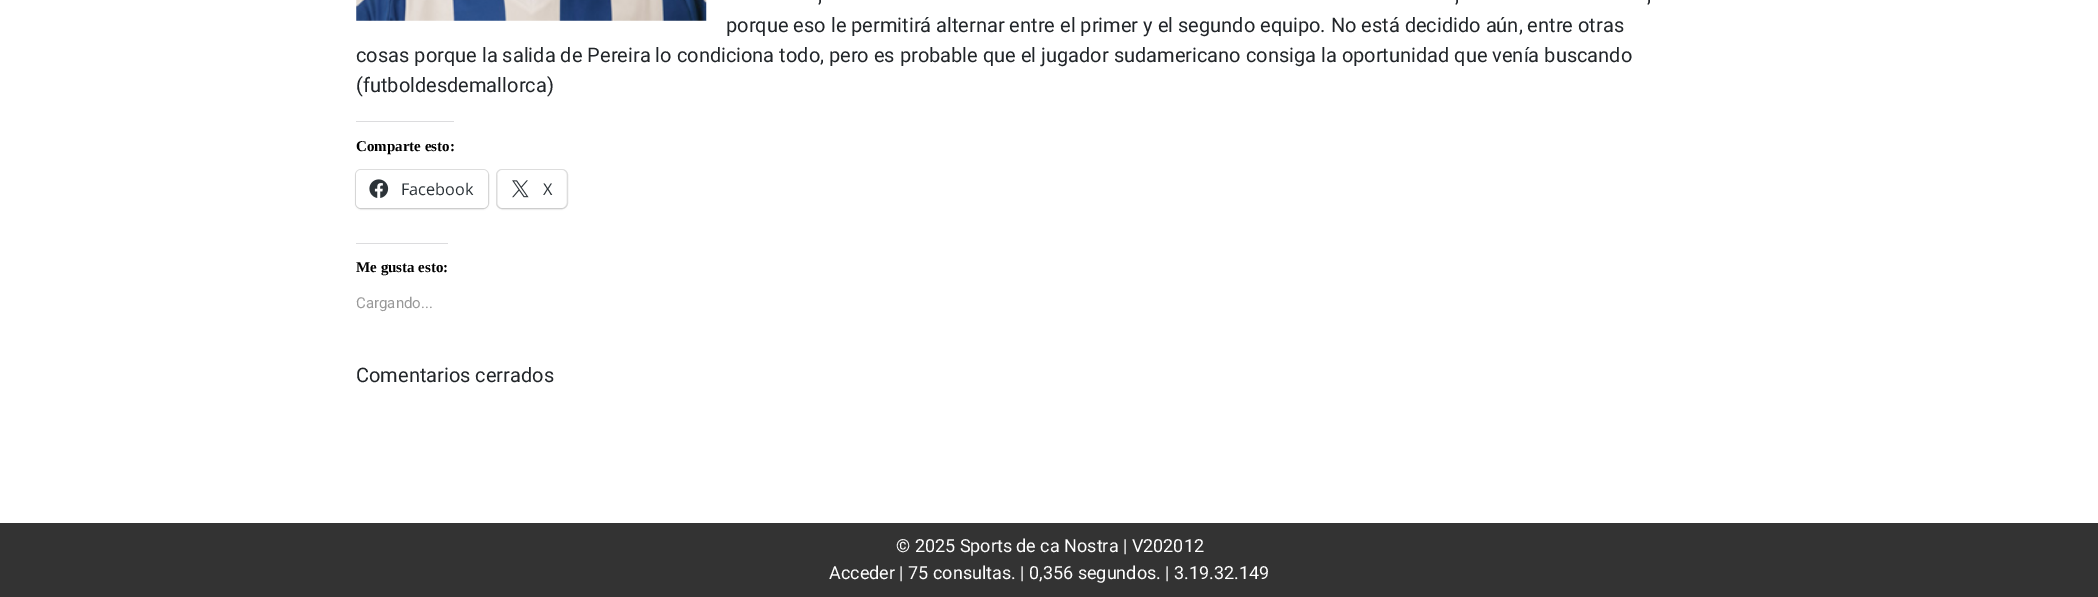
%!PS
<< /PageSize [2098 597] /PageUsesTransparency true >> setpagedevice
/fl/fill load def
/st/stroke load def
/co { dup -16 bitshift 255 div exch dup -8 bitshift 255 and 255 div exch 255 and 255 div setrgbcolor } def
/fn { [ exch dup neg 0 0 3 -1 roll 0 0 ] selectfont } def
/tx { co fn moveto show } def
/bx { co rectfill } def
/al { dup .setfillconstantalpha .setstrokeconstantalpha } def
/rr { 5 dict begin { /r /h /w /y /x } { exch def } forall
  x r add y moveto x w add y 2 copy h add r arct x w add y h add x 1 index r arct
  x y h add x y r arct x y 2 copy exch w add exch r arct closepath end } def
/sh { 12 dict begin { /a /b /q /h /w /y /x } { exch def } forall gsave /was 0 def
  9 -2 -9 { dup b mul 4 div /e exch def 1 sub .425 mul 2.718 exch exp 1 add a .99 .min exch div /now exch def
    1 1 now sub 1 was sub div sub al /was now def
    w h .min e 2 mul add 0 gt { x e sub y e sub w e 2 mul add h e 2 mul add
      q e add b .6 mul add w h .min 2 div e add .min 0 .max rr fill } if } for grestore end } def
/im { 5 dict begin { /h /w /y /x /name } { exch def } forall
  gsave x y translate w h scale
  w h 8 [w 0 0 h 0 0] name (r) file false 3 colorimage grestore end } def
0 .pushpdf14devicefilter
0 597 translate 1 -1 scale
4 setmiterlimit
0 0 2098 597 16#FFFFFF bx
(media/1.raw) 356 0 351 21 im
356 121 98 1 16#DCDCDE bx
16#E0E0E0 co
355.5 169.5 133 39 5.5 rr st
16#000000 co
356 171 132 38 5 1 .12 sh
16#FFFFFF co
356 170 132 38 5 rr fl
(media/2.raw) 369 179 20 19 im
16#E0E0E0 co
496.5 169.5 71 39 5.5 rr st
16#000000 co
498 171 68 38 5 1 .12 sh
16#FFFFFF co
498 170 68 38 5 rr fl
(media/3.raw) 512 180 17 18 im
356 243 92 1 16#DCDCDE bx
0 523 2098 74 16#333333 bx
(,) 818 2 /Roboto-Regular 20 16#212529 tx
(,) 1455 2 /Roboto-Regular 20 16#212529 tx
(,) 1647 2 /Roboto-Regular 20 16#212529 tx
(porque eso le permitirá alternar entre el primer y el segundo equipo. No está decidido aún, entre otras) 726 32 /Roboto-Regular 20 16#212529 tx
(cosas porque la salida de Pereira lo condiciona todo, pero es probable que el jugador sudamericano consiga la oportunidad que venía buscando) 356 62 /Roboto-Regular 20 16#212529 tx
(\(futboldesdemallorca\)) 356 92 /Roboto-Regular 20 16#212529 tx
(Comparte esto:) 356 151 /LiberationSerif-Bold 15 16#000000 tx
(Facebook) 401 195 /OpenSans-Regular 16.25 16#2C3338 tx
(X) 543 195 /OpenSans-Regular 16.25 16#2C3338 tx
(Me gusta esto:) 356 272 /LiberationSerif-Bold 15 16#000000 tx
(Cargando...) 356 308 /Roboto-Regular 15 16#999999 tx
(Comentarios cerrados) 356 382 /Roboto-Regular 20 16#212529 tx
(© 2025 Sports de ca Nostra | V202012) 896 552 /Roboto-Regular 18 16#FFFFFF tx
(Acceder | 75 consultas. | 0,356 segundos. | 3.19.32.149) 829 579 /Roboto-Regular 18 16#FFFFFF tx
.poppdf14devicefilter showpage
